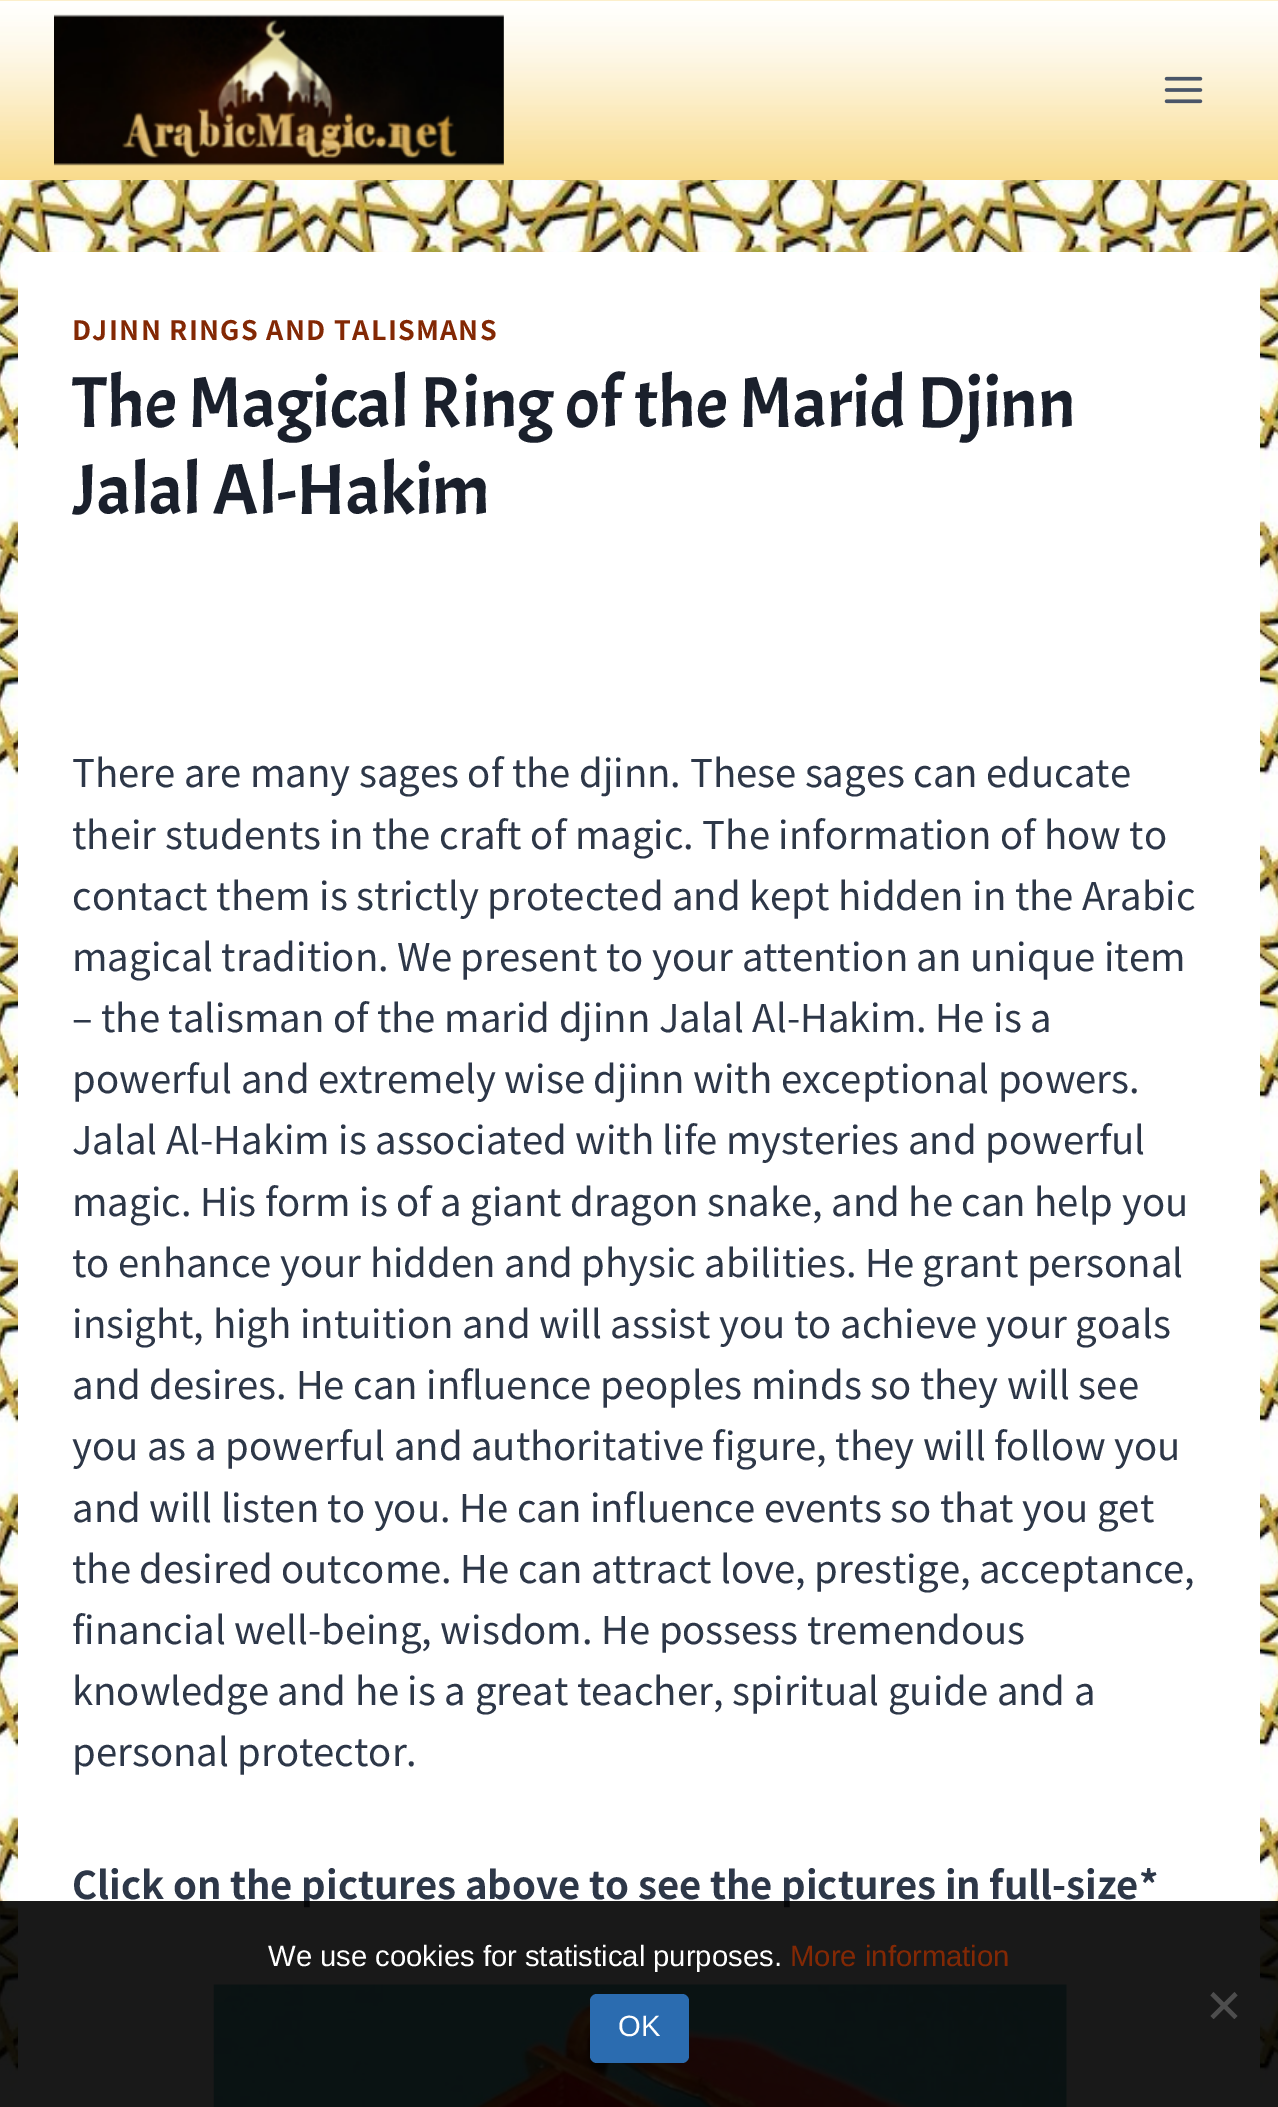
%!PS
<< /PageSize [1278 2107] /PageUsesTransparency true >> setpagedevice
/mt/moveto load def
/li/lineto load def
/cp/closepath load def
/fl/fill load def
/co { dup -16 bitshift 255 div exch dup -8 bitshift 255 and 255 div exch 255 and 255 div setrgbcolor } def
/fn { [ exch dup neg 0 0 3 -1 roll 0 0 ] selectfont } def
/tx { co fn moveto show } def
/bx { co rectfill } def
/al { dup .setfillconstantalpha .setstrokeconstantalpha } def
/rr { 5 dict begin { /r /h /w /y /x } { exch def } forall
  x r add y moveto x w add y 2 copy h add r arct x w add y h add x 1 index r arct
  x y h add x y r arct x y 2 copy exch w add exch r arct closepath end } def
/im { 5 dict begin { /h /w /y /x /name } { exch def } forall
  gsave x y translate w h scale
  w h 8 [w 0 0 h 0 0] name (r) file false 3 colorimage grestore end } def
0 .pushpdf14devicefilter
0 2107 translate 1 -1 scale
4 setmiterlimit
0 0 1278 2107 16#FFFFFF bx
(media/1.raw) 0 180 1278 1927 im
(media/2.raw) 0 0 1278 180 im
(media/3.raw) 54 14 450 152 im
(media/4.raw) 1164 76 39 28 im
18 252 1242 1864 9 rr fl
(media/5.raw) 213 1984 854 123 im
/NotoSansKR-Bold 26.75 fn
16#832804 co
72 340 mt 1.35 0 (DJINN RINGS AND TALISMANS) ashow
(The Magical Ring of the Marid Djinn) 72 427 /Acme-Regular 72 16#1A202C tx
(Jalal Al-Hakim) 72 514 /Acme-Regular 72 16#1A202C tx
(There are many sages of the djinn. These sages can educate) 72 787 /NotoSansKR-Regular 38.25 16#2D3748 tx
(their students in the craft of magic. The information of how to) 72 849 /NotoSansKR-Regular 38.25 16#2D3748 tx
(contact them is strictly protected and kept hidden in the Arabic) 72 910 /NotoSansKR-Regular 38.25 16#2D3748 tx
(magical tradition. We present to your attention an unique item) 72 971 /NotoSansKR-Regular 38.25 16#2D3748 tx
(– the talisman of the marid djinn Jalal Al-Hakim. He is a) 72 1032 /NotoSansKR-Regular 38.25 16#2D3748 tx
(powerful and extremely wise djinn with exceptional powers.) 72 1093 /NotoSansKR-Regular 38.25 16#2D3748 tx
(Jalal Al-Hakim is associated with life mysteries and powerful) 72 1154 /NotoSansKR-Regular 38.25 16#2D3748 tx
(magic. His form is of a giant dragon snake, and he can help you) 72 1216 /NotoSansKR-Regular 38.25 16#2D3748 tx
(to enhance your hidden and physic abilities. He grant personal) 72 1277 /NotoSansKR-Regular 38.25 16#2D3748 tx
(insight, high intuition and will assist you to achieve your goals) 72 1338 /NotoSansKR-Regular 38.25 16#2D3748 tx
(and desires. He can influence peoples minds so they will see) 72 1399 /NotoSansKR-Regular 38.25 16#2D3748 tx
(you as a powerful and authoritative figure, they will follow you) 72 1460 /NotoSansKR-Regular 38.25 16#2D3748 tx
(and will listen to you. He can influence events so that you get) 72 1522 /NotoSansKR-Regular 38.25 16#2D3748 tx
(the desired outcome. He can attract love, prestige, acceptance,) 72 1583 /NotoSansKR-Regular 38.25 16#2D3748 tx
(financial well-being, wisdom. He possess tremendous) 72 1644 /NotoSansKR-Regular 38.25 16#2D3748 tx
(knowledge and he is a great teacher, spiritual guide and a) 72 1705 /NotoSansKR-Regular 38.25 16#2D3748 tx
(personal protector.) 72 1766 /NotoSansKR-Regular 38.25 16#2D3748 tx
(Click on the pictures above to see the pictures in full-size*) 72 1899 /NotoSansKR-Bold 38.25 16#2D3748 tx
0.9 al
0 1901 1278 206 16#000000 bx
1 al
(We use cookies for statistical purposes.) 268 1966 /LiberationSans-Regular 29.25 16#FFFFFF tx
(More information) 790 1966 /LiberationSans-Regular 29.25 16#832804 tx
16#4D4D4D co
1234.5 1992 mt 1237.5 1995.5 li 1213.5 2019 li 1210.5 2016 li cp fl
1210.5 1995.5 mt 1213.5 1992 li 1237.5 2016 li 1234.5 2019 li cp fl
16#2B6CB0 co
590 1994 99 69 7 rr fl
(OK) 618 2036 /LiberationSans-Regular 29.25 16#FFFFFF tx
.poppdf14devicefilter showpage
